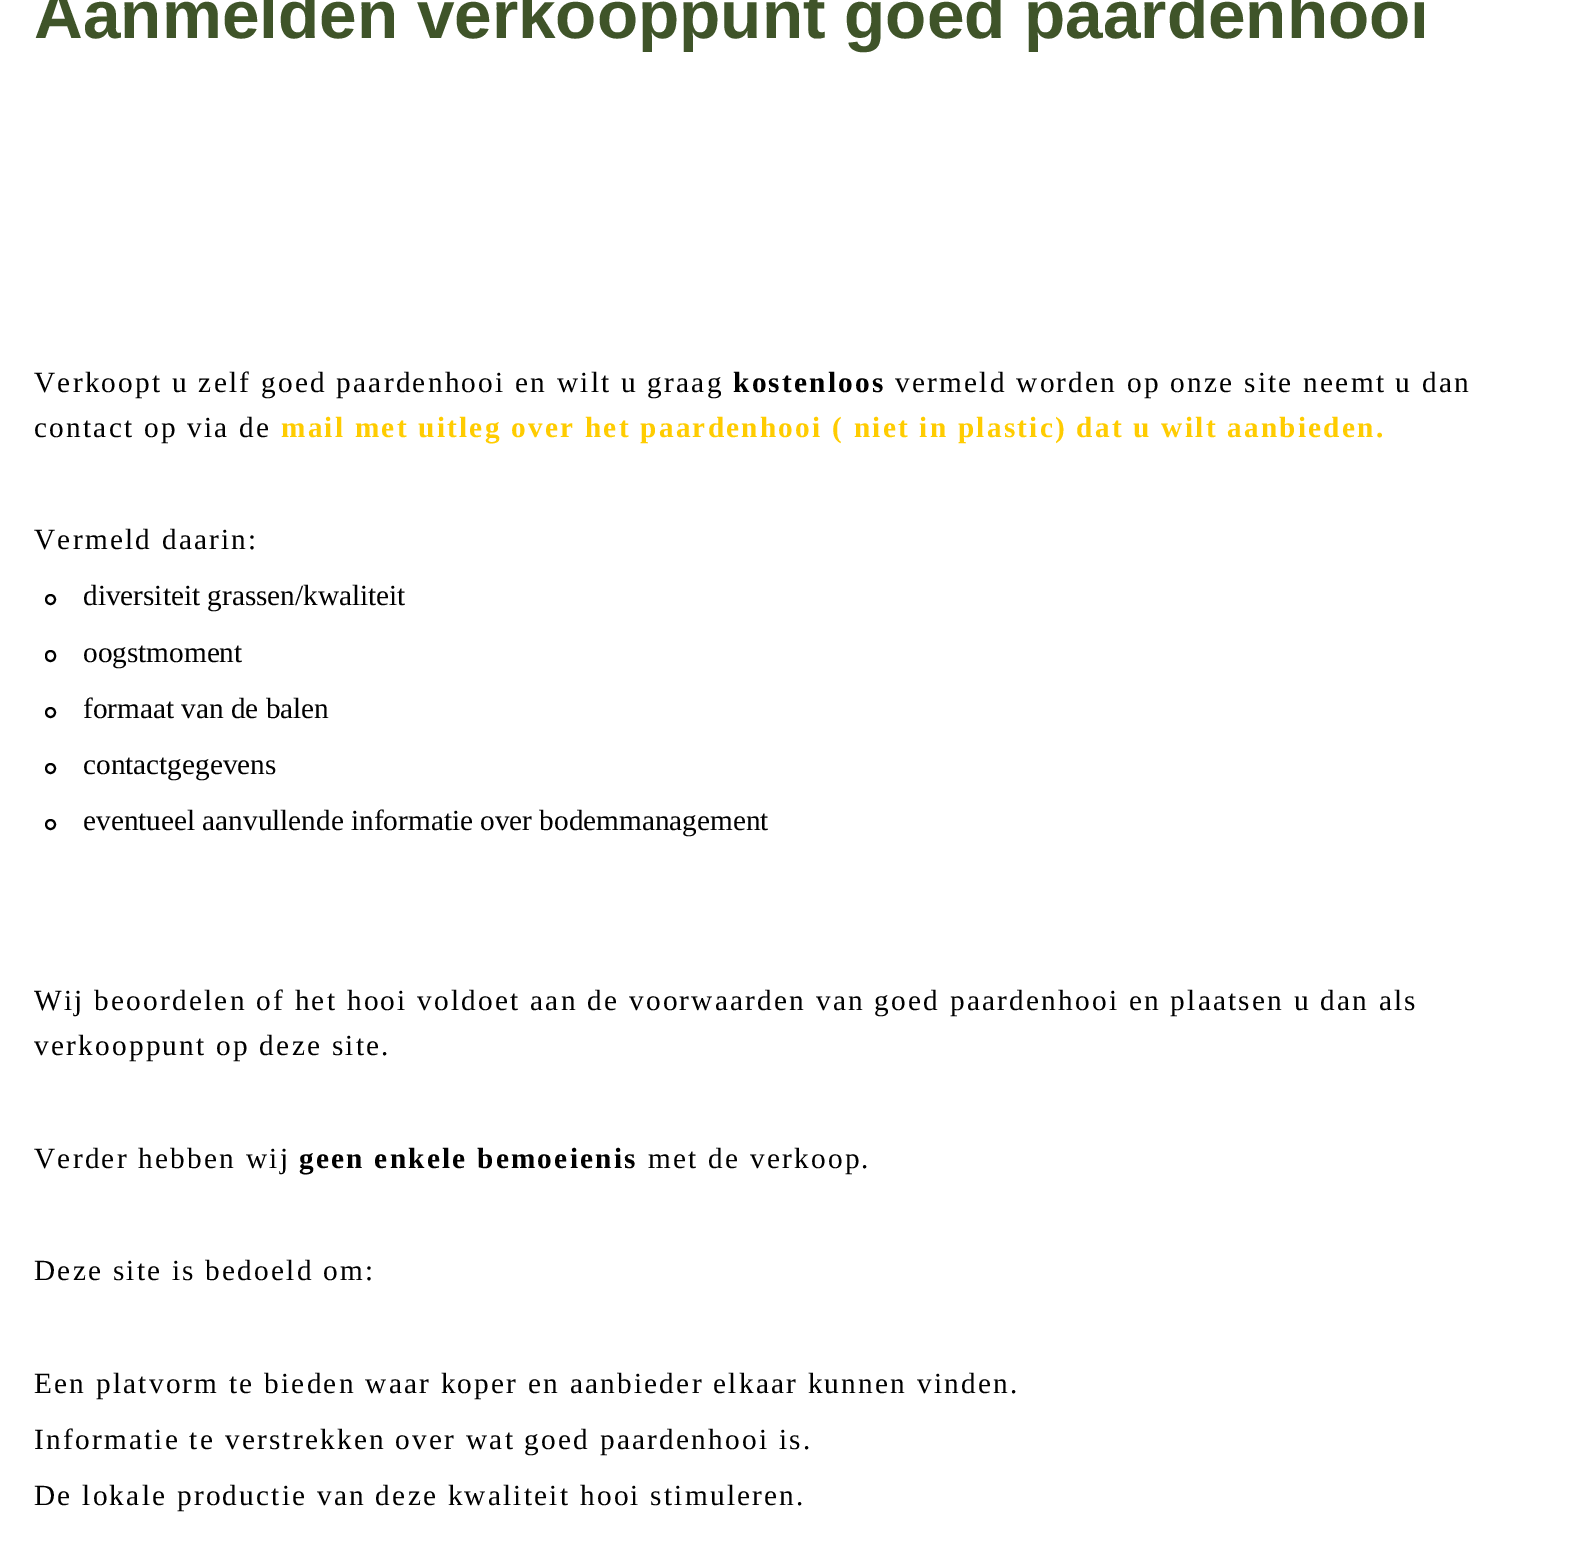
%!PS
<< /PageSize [1581 1565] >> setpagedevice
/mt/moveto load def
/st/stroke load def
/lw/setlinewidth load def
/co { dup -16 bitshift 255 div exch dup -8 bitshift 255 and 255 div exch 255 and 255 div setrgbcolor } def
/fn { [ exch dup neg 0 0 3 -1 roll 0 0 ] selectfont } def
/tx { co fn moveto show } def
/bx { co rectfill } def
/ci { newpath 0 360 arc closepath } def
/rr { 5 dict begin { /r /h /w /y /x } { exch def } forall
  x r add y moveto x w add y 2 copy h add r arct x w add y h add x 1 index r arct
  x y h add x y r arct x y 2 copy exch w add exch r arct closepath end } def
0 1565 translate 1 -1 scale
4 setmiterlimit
0 0 1581 1565 16#FFFFFF bx
16#000000 co
2 lw
50.5 599.5 4.5 ci st
46 651 9 10 4.5 rr st
50.5 712.5 4.5 ci st
50.5 768.5 4.5 ci st
50.5 824.5 4.5 ci st
(Aanmelden verkooppunt goed paardenhooi) 34 38 /LiberationSans-Bold 67.5 16#3F5429 tx
/LiberationSerif-Regular 29.25 fn
16#000000 co
34 392 mt 2.25 0 (Verkoopt u zelf goed paardenhooi en wilt u graag) ashow
/LiberationSerif-Bold 29.25 fn
733 392 mt 2.25 0 (kostenloos) ashow
/LiberationSerif-Regular 29.25 fn
895 392 mt 2.25 0 (vermeld worden op onze site neemt u dan) ashow
34 437 mt 2.25 0 (contact op via de) ashow
/LiberationSerif-Bold 29.25 fn
16#FFCC00 co
281 437 mt 2.25 0 (mail met uitleg over het paardenhooi \( niet in plastic\) dat u wilt aanbieden.) ashow
/LiberationSerif-Regular 29.25 fn
16#000000 co
34 549 mt 2.25 0 (Vermeld daarin:) ashow
(diversiteit grassen/kwaliteit) 83 605 /LiberationSerif-Regular 29.25 16#000000 tx
(oogstmoment) 83 662 /LiberationSerif-Regular 29.25 16#000000 tx
(formaat van de balen) 83 718 /LiberationSerif-Regular 29.25 16#000000 tx
(contactgegevens) 83 774 /LiberationSerif-Regular 29.25 16#000000 tx
(eventueel aanvullende informatie over bodemmanagement) 83 830 /LiberationSerif-Regular 29.25 16#000000 tx
34 1010 mt 2.25 0 (Wij beoordelen of het hooi voldoet aan de voorwaarden van goed paardenhooi en plaatsen u dan als) ashow
34 1055 mt 2.25 0 (verkooppunt op deze site.) ashow
34 1168 mt 2.25 0 (Verder hebben wij) ashow
/LiberationSerif-Bold 29.25 fn
299 1168 mt 2.25 0 (geen enkele bemoeienis) ashow
/LiberationSerif-Regular 29.25 fn
648 1168 mt 2.25 0 (met de verkoop.) ashow
34 1280 mt 2.25 0 (Deze site is bedoeld om:) ashow
34 1393 mt 2.25 0 (Een platvorm te bieden waar koper en aanbieder elkaar kunnen vinden.) ashow
34 1449 mt 2.25 0 (Informatie te verstrekken over wat goed paardenhooi is.) ashow
34 1505 mt 2.25 0 (De lokale productie van deze kwaliteit hooi stimuleren.) ashow
showpage
